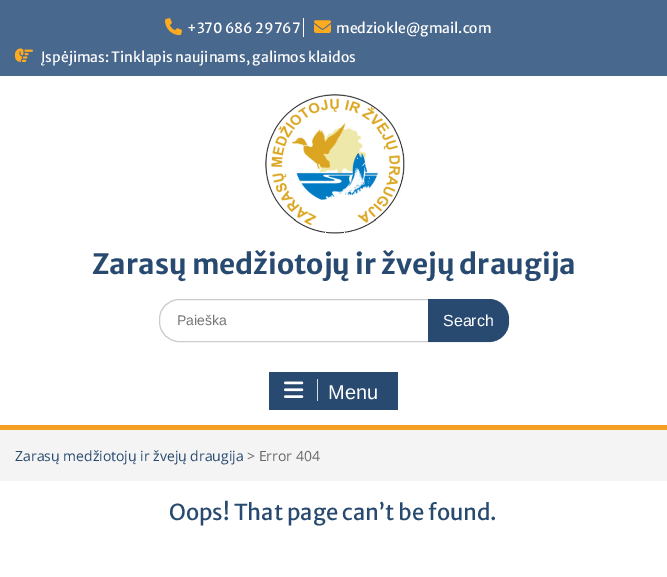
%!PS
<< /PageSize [667 577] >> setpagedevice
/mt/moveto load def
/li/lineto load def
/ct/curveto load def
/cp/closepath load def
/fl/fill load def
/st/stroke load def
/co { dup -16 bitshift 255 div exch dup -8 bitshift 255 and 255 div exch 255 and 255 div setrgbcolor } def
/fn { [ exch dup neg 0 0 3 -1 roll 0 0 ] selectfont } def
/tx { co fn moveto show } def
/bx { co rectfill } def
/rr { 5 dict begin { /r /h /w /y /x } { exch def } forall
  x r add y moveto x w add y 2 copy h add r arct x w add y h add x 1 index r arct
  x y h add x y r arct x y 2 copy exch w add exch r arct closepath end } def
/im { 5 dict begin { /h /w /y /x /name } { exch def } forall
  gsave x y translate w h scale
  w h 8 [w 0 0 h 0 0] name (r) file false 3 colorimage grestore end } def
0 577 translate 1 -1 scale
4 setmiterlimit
0 0 667 577 16#FFFFFF bx
0 0 667 76 16#49688E bx
(media/1.raw) 165 18 17 18 im
303 18 1 19 16#FFFFFF bx
(media/2.raw) 314 20 17 13 im
(media/3.raw) 15 48 18 14 im
(media/4.raw) 265 94 140 140 im
16#CCCCCC co
159.5 299.5 349 42 19.5 rr st
16#294A70 co
428 299 mt 489 299 li 500 299 509 308 509 319 ct 509 322 li 509 333 500 342 489 342 ct 428 342 li cp fl
0 425 667 5 16#F4A024 bx
269 372 129 38 16#294A70 bx
317 379 1 22 16#DDDDDD bx
(media/5.raw) 284 381 20 17 im
0 430 667 51 16#F4F4F4 bx
(+370 686 29767) 187 33 /MerriweatherSans-Regular 14 16#FFFFFF tx
(medziokle@gmail.com) 336 33 /MerriweatherSans-Regular 14 16#FFFFFF tx
(Įspėjimas: Tinklapis naujinams, galimos klaidos) 41 62 /MerriweatherSans-Regular 14 16#FFFFFF tx
(Zarasų medžiotojų ir žvejų draugija) 92 274 /MerriweatherSans-Bold 28 16#294A70 tx
(Paieška) 177 325 /LiberationSans-Regular 14 16#757575 tx
(Search) 443 326 /LiberationSans-Regular 16 16#FFFFFF tx
(Menu) 328 399 /LiberationSans-Regular 20 16#FFFFFF tx
(Zarasų medžiotojų ir žvejų draugija) 15 461 /OpenSans-Regular 14 16#294A70 tx
(> Error 404) 247 461 /OpenSans-Regular 14 16#666666 tx
(Oops! That page can’t be found.) 169 520 /MerriweatherSans-Regular 22 16#294A70 tx
showpage
